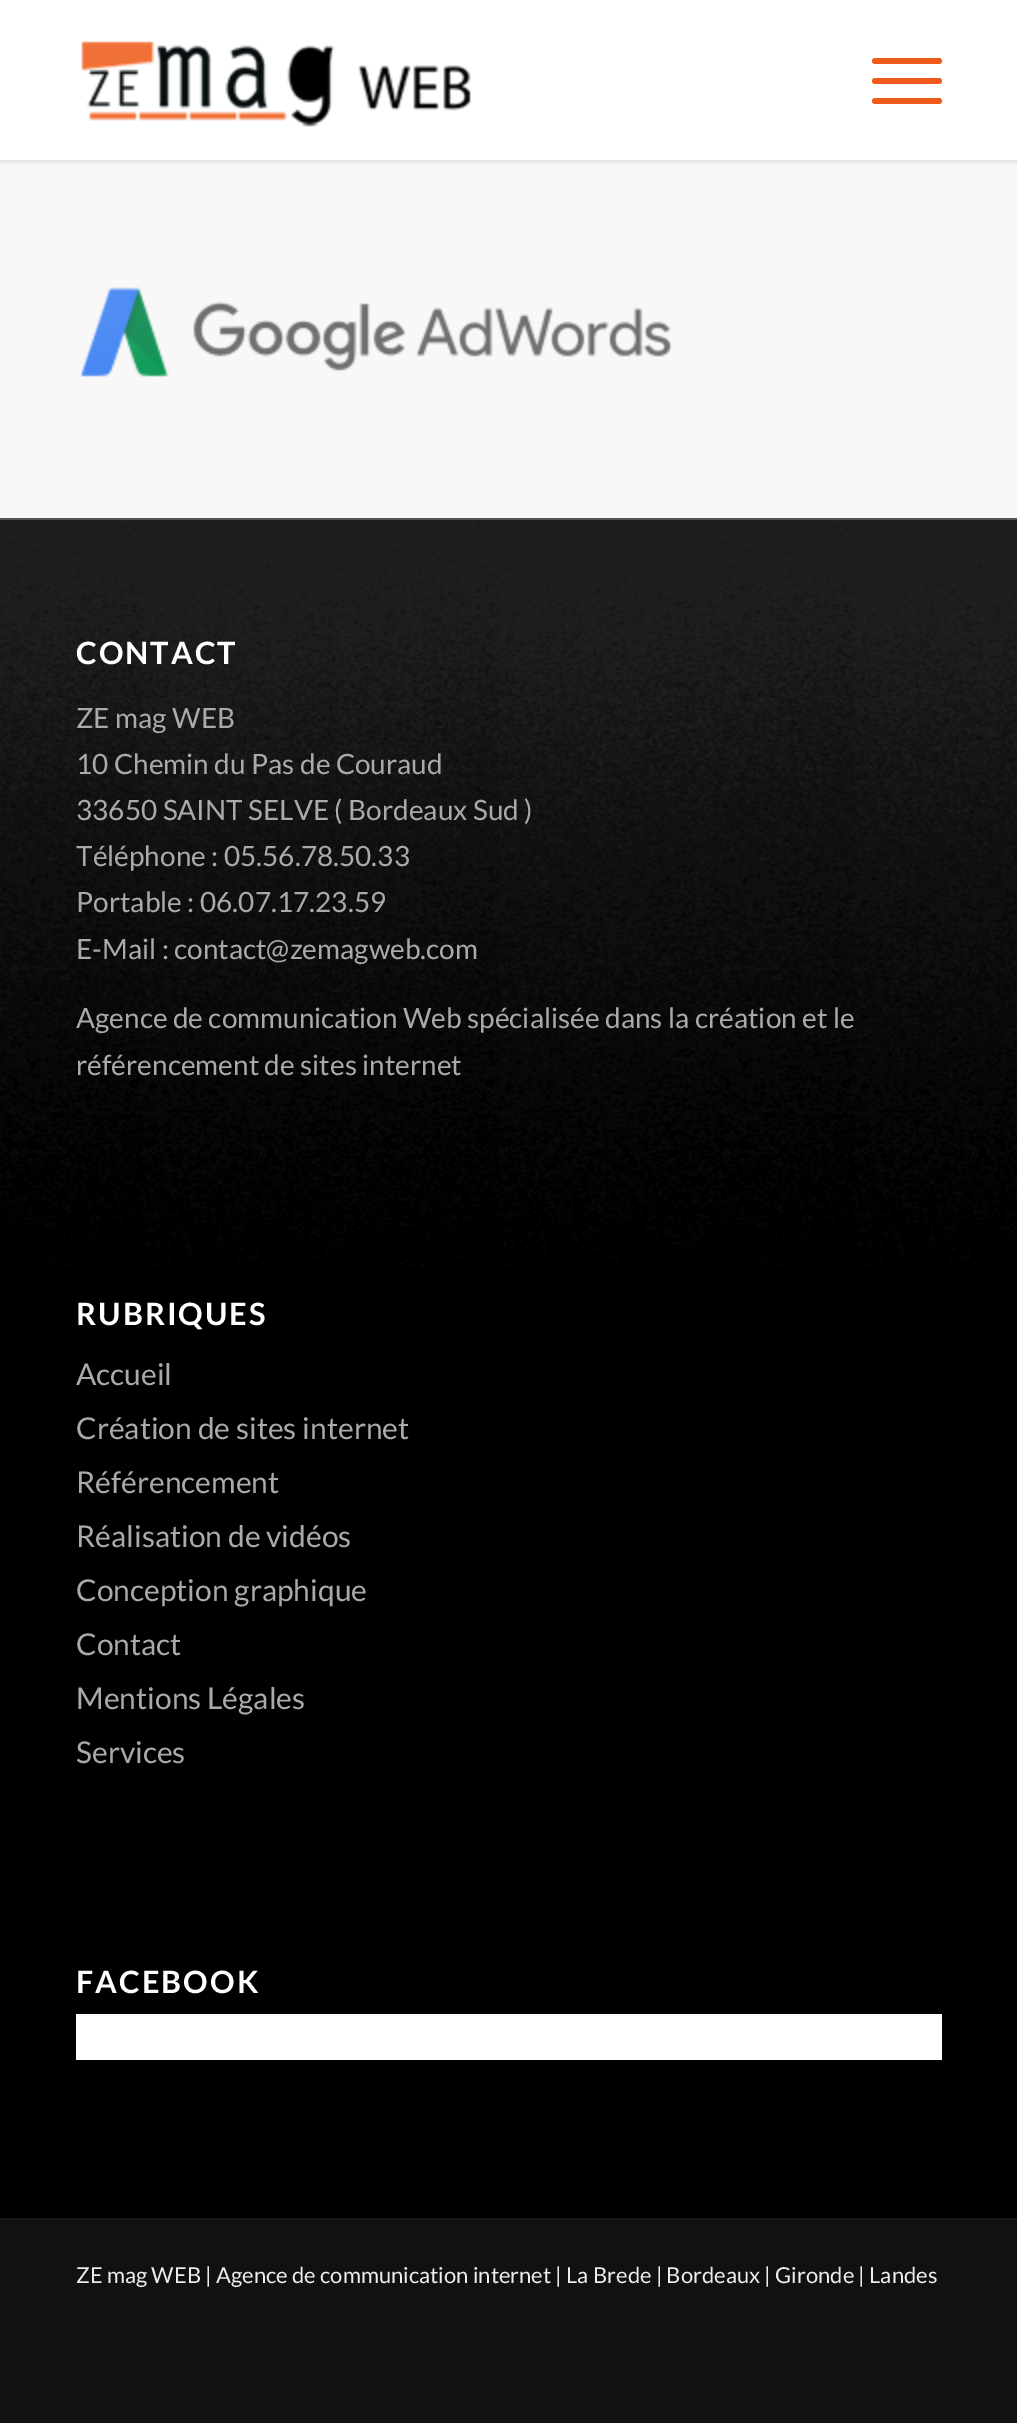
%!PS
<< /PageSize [1017 2423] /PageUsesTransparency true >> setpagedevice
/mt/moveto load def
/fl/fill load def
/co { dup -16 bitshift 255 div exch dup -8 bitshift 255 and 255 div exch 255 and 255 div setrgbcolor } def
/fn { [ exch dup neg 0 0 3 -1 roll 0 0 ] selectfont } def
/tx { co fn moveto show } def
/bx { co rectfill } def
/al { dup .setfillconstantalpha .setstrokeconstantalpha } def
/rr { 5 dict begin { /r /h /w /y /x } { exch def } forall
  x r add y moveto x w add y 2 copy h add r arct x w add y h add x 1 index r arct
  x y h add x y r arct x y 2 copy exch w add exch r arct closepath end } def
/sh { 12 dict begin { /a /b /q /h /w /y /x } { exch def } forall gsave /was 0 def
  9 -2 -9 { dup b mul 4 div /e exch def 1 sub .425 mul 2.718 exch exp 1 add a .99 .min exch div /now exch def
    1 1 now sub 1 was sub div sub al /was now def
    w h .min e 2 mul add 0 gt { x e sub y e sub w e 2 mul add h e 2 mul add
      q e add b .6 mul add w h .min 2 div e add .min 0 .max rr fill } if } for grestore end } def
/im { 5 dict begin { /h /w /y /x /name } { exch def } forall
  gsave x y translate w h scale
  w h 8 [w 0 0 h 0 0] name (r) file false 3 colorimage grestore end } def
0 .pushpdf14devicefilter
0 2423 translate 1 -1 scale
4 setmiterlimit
0 0 1017 2423 16#111111 bx
0 160 1017 358 16#F8F8F8 bx
16#000000 co
-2 -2 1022 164 0 2 .1 sh
0 0 1017 160 16#FFFFFF bx
(media/1.raw) 81 41 390 86 im
16#F05A1A co
872 78 70 6 3 rr fl
872 58 70 6 3 rr fl
872 98 70 6 3 rr fl
(media/2.raw) 79 287 593 90 im
0 520 1017 1698 16#000000 bx
(media/3.raw) 0 520 1017 747 im
0 518 1017 2 16#555555 bx
76 2014 866 46 16#FFFFFF bx
0 2218 1017 2 16#161616 bx
/Lato-Bold 30.75 fn
16#FFFFFF co
76 664 mt 2 0 (CONTACT) ashow
(ZE mag WEB) 76 728 /Lato-Regular 28 16#AAAAAA tx
(10 Chemin du Pas de Couraud) 76 774 /Lato-Regular 28 16#AAAAAA tx
(33650 SAINT SELVE \( Bordeaux Sud \)) 76 820 /Lato-Regular 28 16#AAAAAA tx
(Téléphone : 05.56.78.50.33) 76 866 /Lato-Regular 28 16#AAAAAA tx
(Portable : 06.07.17.23.59) 76 912 /Lato-Regular 28 16#AAAAAA tx
(E-Mail : contact@zemagweb.com) 76 959 /Lato-Regular 28 16#AAAAAA tx
(Agence de communication Web spécialisée dans la création et le) 76 1028 /Lato-Regular 28 16#AAAAAA tx
(référencement de sites internet) 76 1075 /Lato-Regular 28 16#AAAAAA tx
/Lato-Bold 30.75 fn
16#FFFFFF co
76 1325 mt 2 0 (RUBRIQUES) ashow
(Accueil) 76 1385 /Lato-Regular 30 16#AAAAAA tx
(Création de sites internet) 76 1439 /Lato-Regular 30 16#AAAAAA tx
(Référencement) 76 1493 /Lato-Regular 30 16#AAAAAA tx
(Réalisation de vidéos) 76 1547 /Lato-Regular 30 16#AAAAAA tx
(Conception graphique) 76 1601 /Lato-Regular 30 16#AAAAAA tx
(Contact) 76 1655 /Lato-Regular 30 16#AAAAAA tx
(Mentions Légales) 76 1709 /Lato-Regular 30 16#AAAAAA tx
(Services) 76 1763 /Lato-Regular 30 16#AAAAAA tx
/Lato-Bold 30.75 fn
16#FFFFFF co
76 1993 mt 2 0 (FACEBOOK) ashow
(ZE mag WEB | Agence de communication internet | La Brede | Bordeaux | Gironde | Landes) 76 2283 /Lato-Regular 22 16#EEEEEE tx
.poppdf14devicefilter showpage
